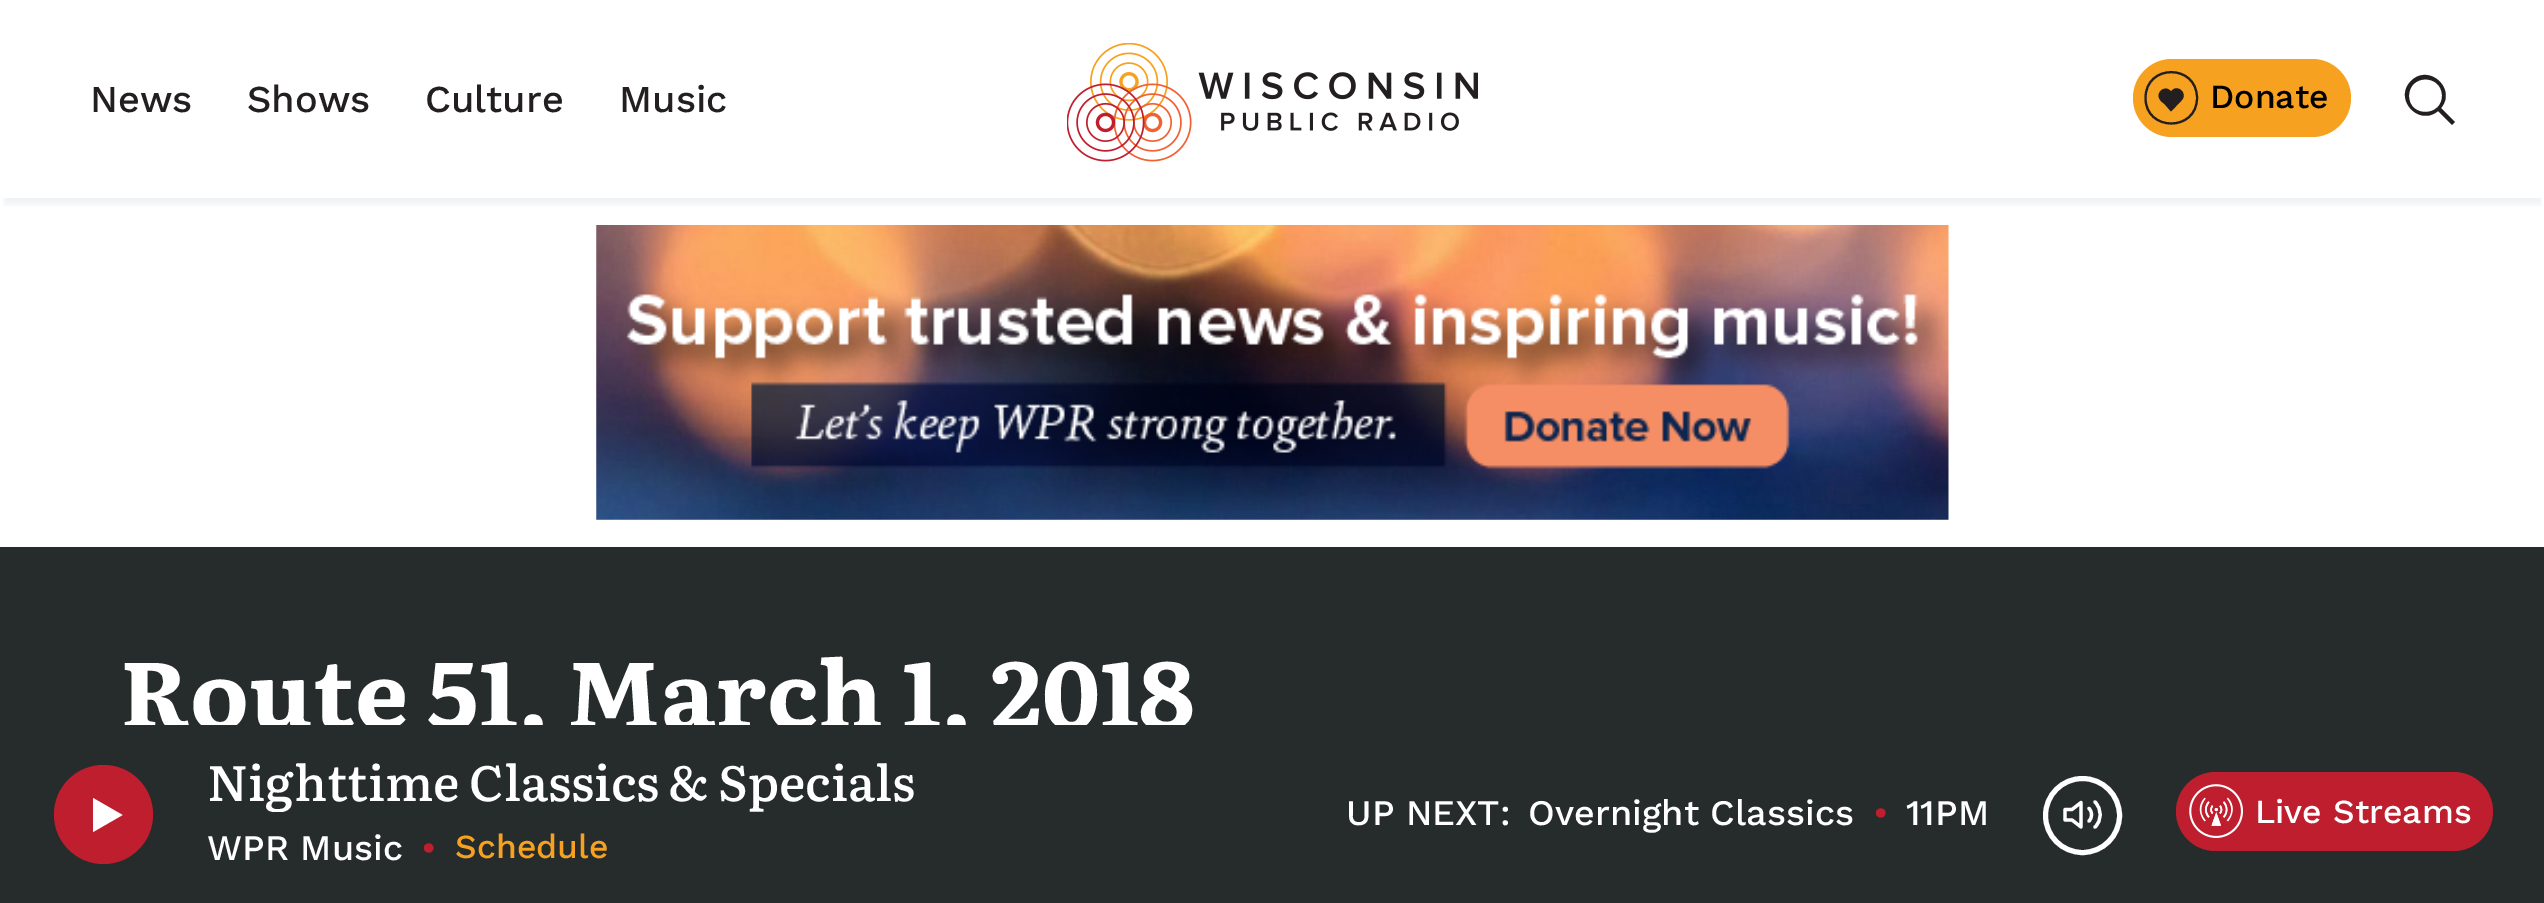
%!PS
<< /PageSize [2544 903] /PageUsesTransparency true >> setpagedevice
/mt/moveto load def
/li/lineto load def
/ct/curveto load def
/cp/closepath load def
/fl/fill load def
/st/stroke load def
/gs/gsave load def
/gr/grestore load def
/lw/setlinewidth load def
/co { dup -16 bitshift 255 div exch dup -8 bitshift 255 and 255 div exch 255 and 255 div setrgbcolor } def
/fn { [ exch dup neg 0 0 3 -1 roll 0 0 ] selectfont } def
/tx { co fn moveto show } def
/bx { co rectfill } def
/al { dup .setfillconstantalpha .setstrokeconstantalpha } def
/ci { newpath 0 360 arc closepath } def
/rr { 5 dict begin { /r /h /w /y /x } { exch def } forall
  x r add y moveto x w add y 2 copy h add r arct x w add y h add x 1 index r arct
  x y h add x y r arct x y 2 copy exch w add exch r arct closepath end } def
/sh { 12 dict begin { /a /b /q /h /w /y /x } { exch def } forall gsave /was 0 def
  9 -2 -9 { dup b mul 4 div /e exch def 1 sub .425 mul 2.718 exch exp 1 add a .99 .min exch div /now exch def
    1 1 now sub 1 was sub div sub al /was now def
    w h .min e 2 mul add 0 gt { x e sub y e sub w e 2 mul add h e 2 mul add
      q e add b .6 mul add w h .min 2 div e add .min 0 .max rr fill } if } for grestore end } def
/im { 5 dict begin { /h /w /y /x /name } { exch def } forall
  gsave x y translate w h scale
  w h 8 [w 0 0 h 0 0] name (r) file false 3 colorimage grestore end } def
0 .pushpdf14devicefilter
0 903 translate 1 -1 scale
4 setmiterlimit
0 0 2544 903 16#FFFFFF bx
gs
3 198 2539 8 rectclip
16#18274B co
5 14 2535 189 0 4.5 .08 sh
gr
(media/1.raw) 1067 43 411 119 im
16#F6A120 co
2133 59 218 78 39 rr fl
16#231F20 co
2.1 lw
2145.5 98 mt 2145.5 63.5 2197 63.5 2197 98 ct 2197 132 2145.5 132 2145.5 98 ct cp st
2181.5 100.5 mt 2171 111.5 li 2164.5 104 li 2162.5 102.5 2160.5 101 2159.5 99 ct 2155.5 91.5 2166 84.5 2171 91.5 ct 2177 83 2188.5 93.5 2181.5 100.5 ct fl
2455 122 mt 2441 108 li 2457 89 2429 63 2411 81 ct 2393 99 2419 127 2438 111 ct 2452 125 li cp 2409 96 mt 2409 74 2441 74 2442 95 ct 2443 117 2409 118 2409 96 ct cp fl
(media/2.raw) 596 225 1353 295 im
0 547 2544 178 16#262C2C bx
(News) 90 112 /WorkSans-Medium 38 16#231F20 tx
(Shows) 247 112 /WorkSans-Medium 38 16#231F20 tx
(Culture) 425 112 /WorkSans-Medium 38 16#231F20 tx
(Music) 619 112 /WorkSans-Medium 38 16#231F20 tx
(Donate) 2210 108 /WorkSans-Medium 33.75 16#000000 tx
(Route 51, March 1, 2018) 120 729 /Literata-Bold 94.5 16#FFFFFF tx
0 725 2544 178 16#262C2C bx
16#BE1E2D co
103.5 814.5 49.5 ci fl
16#FFFFFF co
93 798 mt 93 832 li 122.5 815 li cp fl
gs
207 749 1085 63 rectclip
/Literata-Medium 49.5 fn
207 801 mt -1 0 32 (Nighttime Classics & Specials) widthshow
gr
(WPR Music) 207 860 /WorkSans-Medium 36 16#FFFFFF tx
(•) 421 860 /WorkSans-Medium 36 16#BE1E2D tx
(Schedule) 455 858 /WorkSans-Medium 33.75 16#F6A120 tx
(UP NEXT:) 1346 825 /WorkSans-Medium 36 16#FFFFFF tx
(Overnight Classics) 1528 825 /WorkSans-Medium 36 16#FFFFFF tx
(•) 1873 825 /WorkSans-Medium 36 16#BE1E2D tx
(11PM) 1906 825 /WorkSans-Medium 36 16#FFFFFF tx
5 lw
2082.5 815.5 37 ci st
3.2 lw
1 setlinecap
1 setlinejoin
2081 802.5 mt 2072 809.5 li 2065 809.5 li 2065 820 li 2072 820 li 2081 827 li cp 2095 802 mt 2102 809 2102 820.5 2095 827 ct 2089 808.5 mt 2092.5 812 2092.5 817.5 2089 821 ct st
16#BE1E2D co
2176 772 317 79 39.5 rr fl
(media/3.raw) 2189 784 54 54 im
(Live Streams) 2255 823 /WorkSans-Medium 33.75 16#FFFFFF tx
.poppdf14devicefilter showpage
